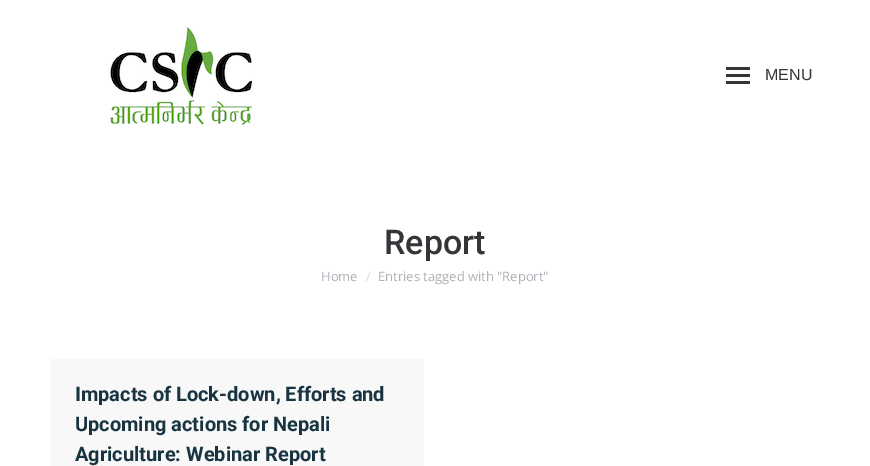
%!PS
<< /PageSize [870 466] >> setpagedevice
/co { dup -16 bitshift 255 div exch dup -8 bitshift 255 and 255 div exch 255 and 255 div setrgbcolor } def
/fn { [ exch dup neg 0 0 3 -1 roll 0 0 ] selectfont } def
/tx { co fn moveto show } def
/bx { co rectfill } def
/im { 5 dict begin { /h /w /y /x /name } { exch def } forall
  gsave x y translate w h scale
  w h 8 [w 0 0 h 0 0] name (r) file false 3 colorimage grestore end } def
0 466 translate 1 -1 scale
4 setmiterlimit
0 0 870 466 16#FFFFFF bx
(media/1.raw) 110 27 143 98 im
726 67 24 3 16#333539 bx
726 74 24 3 16#333539 bx
726 81 24 3 16#333539 bx
50 359 374 107 16#F8F8F9 bx
(MENU) 765 80 /LiberationSans-Regular 16 16#333539 tx
(Report) 384 254 /Roboto-Medium 34 16#333539 tx
(Home) 321 281 /OpenSans-Regular 13 16#ADB0B6 tx
(/) 366 281 /OpenSans-Regular 13 16#D6D8DB tx
(Entries tagged with "Report") 378 281 /OpenSans-Regular 13 16#ADB0B6 tx
(Impacts of Lock-down, Efforts and) 75 401 /Roboto-Bold 20 16#193441 tx
(Upcoming actions for Nepali) 75 431 /Roboto-Bold 20 16#193441 tx
(Agriculture: Webinar Report) 75 461 /Roboto-Bold 20 16#193441 tx
showpage
